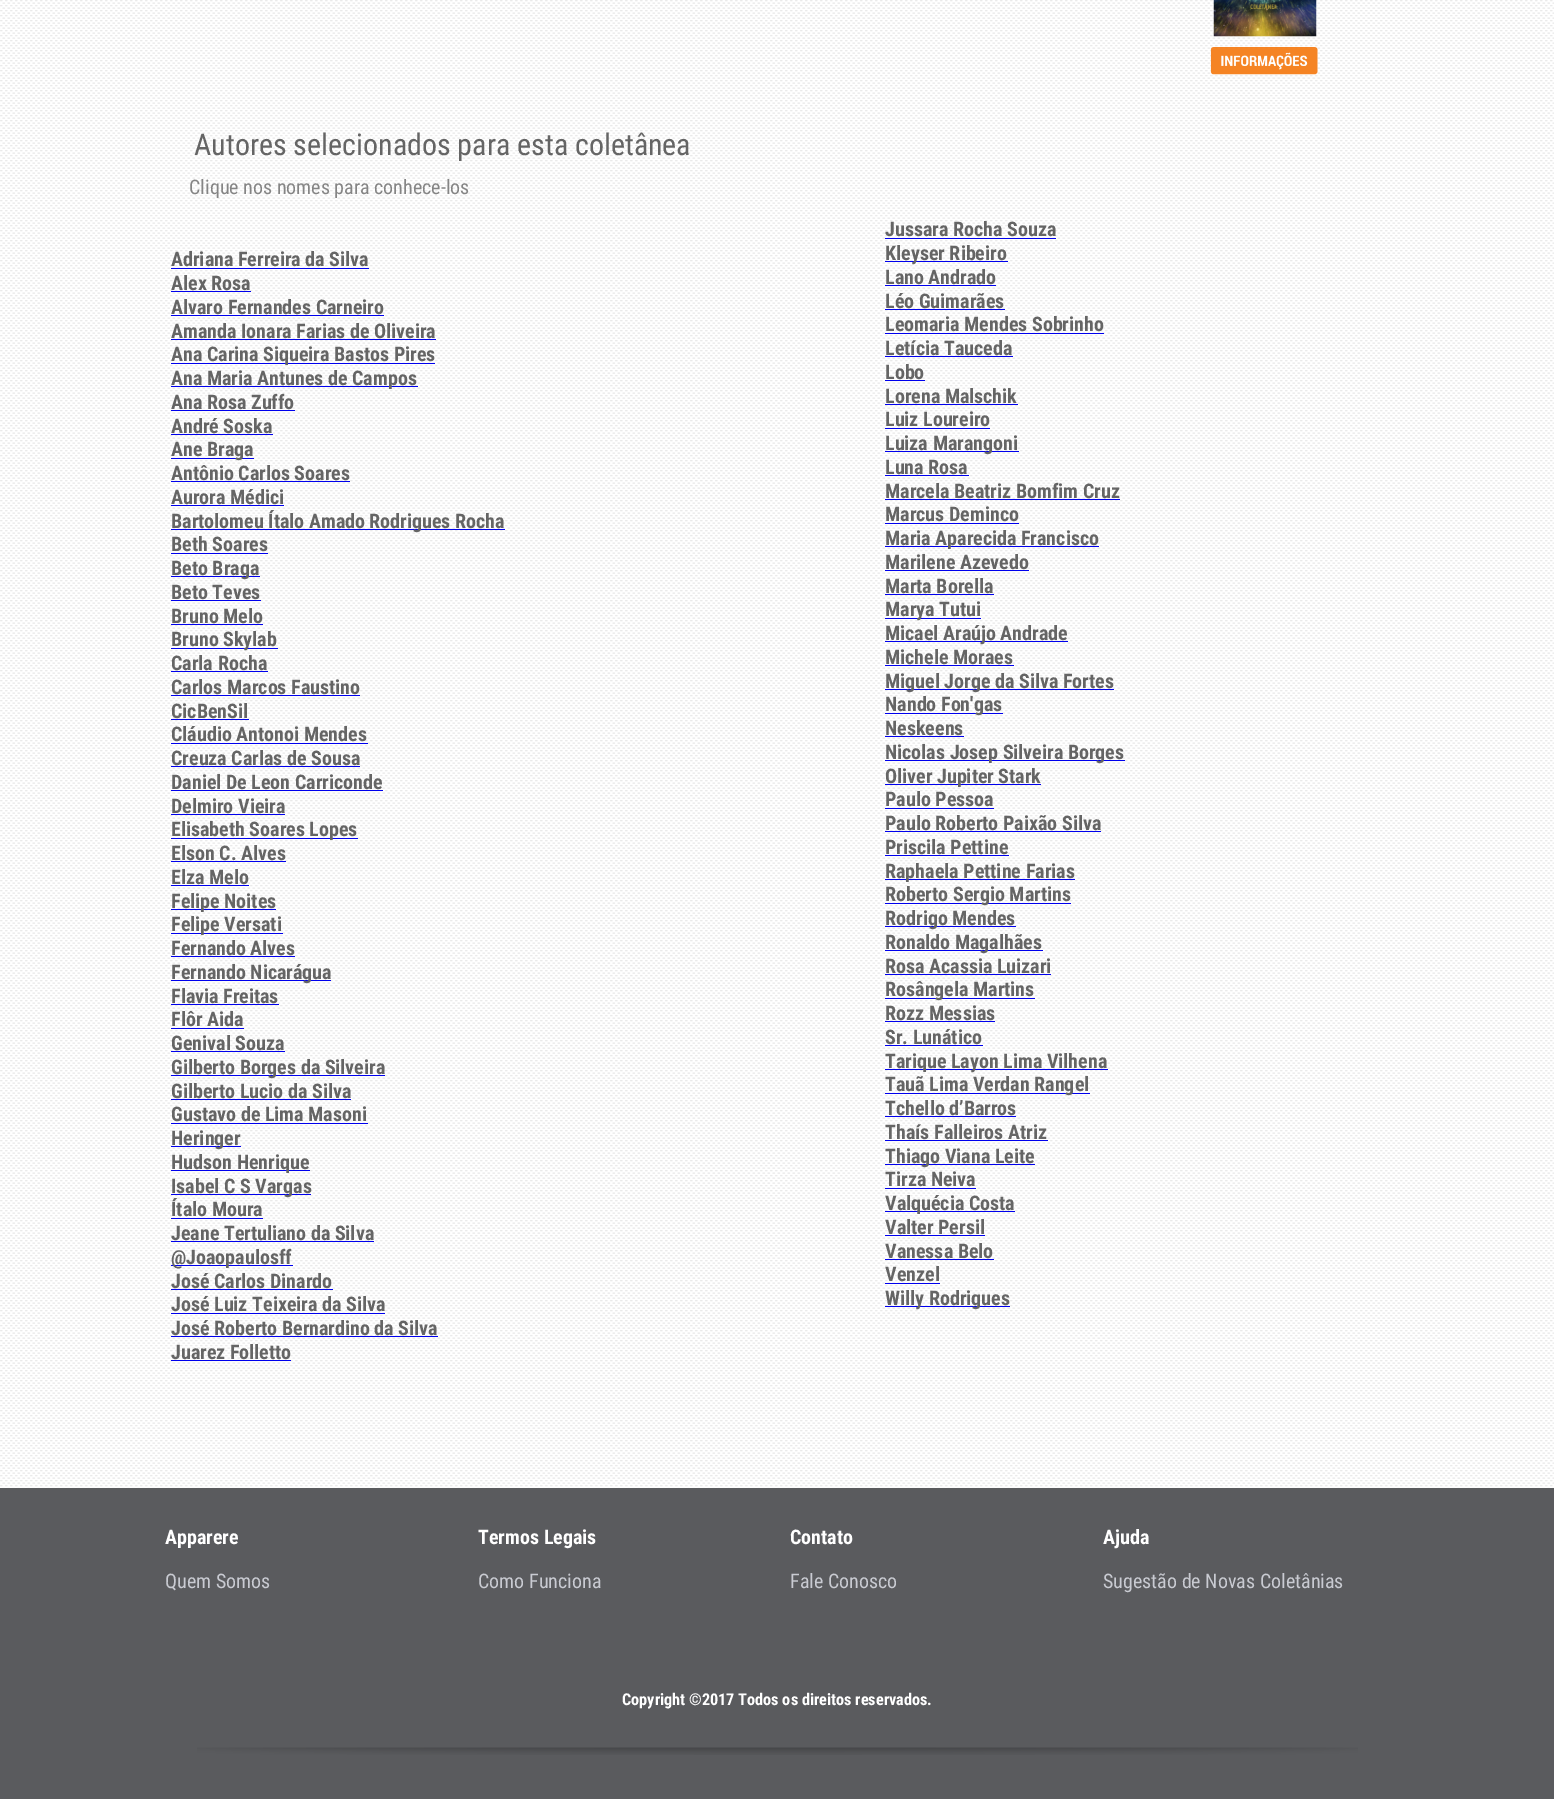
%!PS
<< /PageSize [1554 1799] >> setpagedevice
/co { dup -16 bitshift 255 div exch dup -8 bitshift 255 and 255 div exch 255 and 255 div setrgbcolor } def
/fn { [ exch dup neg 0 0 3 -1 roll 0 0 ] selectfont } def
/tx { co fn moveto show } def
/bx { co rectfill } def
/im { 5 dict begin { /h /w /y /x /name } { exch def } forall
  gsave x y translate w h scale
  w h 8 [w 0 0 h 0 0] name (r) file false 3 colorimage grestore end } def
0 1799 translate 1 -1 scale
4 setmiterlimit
0 0 1554 1799 16#FFFFFF bx
(media/1.raw) 0 0 1554 1488 im
(media/2.raw) 1213 0 104 37 im
(media/3.raw) 1210 47 108 28 im
171 268 198 1 16#0000EE bx
171 291 80 1 16#0000EE bx
171 315 213 1 16#0000EE bx
171 339 265 1 16#0000EE bx
171 363 264 1 16#0000EE bx
171 386 247 1 16#0000EE bx
171 410 124 1 16#0000EE bx
171 434 102 1 16#0000EE bx
171 458 83 1 16#0000EE bx
171 481 179 1 16#0000EE bx
171 505 113 1 16#0000EE bx
171 529 334 1 16#0000EE bx
171 553 97 1 16#0000EE bx
171 576 89 1 16#0000EE bx
171 600 90 1 16#0000EE bx
171 624 92 1 16#0000EE bx
171 648 107 1 16#0000EE bx
171 671 97 1 16#0000EE bx
171 695 189 1 16#0000EE bx
171 719 78 1 16#0000EE bx
171 743 197 1 16#0000EE bx
171 766 189 1 16#0000EE bx
171 790 212 1 16#0000EE bx
171 814 114 1 16#0000EE bx
171 838 187 1 16#0000EE bx
171 861 115 1 16#0000EE bx
171 885 78 1 16#0000EE bx
171 909 105 1 16#0000EE bx
171 933 112 1 16#0000EE bx
171 956 124 1 16#0000EE bx
171 980 160 1 16#0000EE bx
171 1004 108 1 16#0000EE bx
171 1028 73 1 16#0000EE bx
171 1051 114 1 16#0000EE bx
171 1075 214 1 16#0000EE bx
171 1099 180 1 16#0000EE bx
171 1123 197 1 16#0000EE bx
171 1146 70 1 16#0000EE bx
171 1170 139 1 16#0000EE bx
171 1194 140 1 16#0000EE bx
171 1218 92 1 16#0000EE bx
171 1241 203 1 16#0000EE bx
171 1265 122 1 16#0000EE bx
171 1289 162 1 16#0000EE bx
171 1313 214 1 16#0000EE bx
171 1336 267 1 16#0000EE bx
171 1360 120 1 16#0000EE bx
885 238 171 1 16#0000EE bx
885 261 123 1 16#0000EE bx
885 285 111 1 16#0000EE bx
885 309 120 1 16#0000EE bx
885 333 219 1 16#0000EE bx
885 356 128 1 16#0000EE bx
885 380 40 1 16#0000EE bx
885 404 133 1 16#0000EE bx
885 428 105 1 16#0000EE bx
885 451 134 1 16#0000EE bx
885 475 84 1 16#0000EE bx
885 499 235 1 16#0000EE bx
885 523 134 1 16#0000EE bx
885 546 214 1 16#0000EE bx
885 570 144 1 16#0000EE bx
885 594 109 1 16#0000EE bx
885 618 96 1 16#0000EE bx
885 641 183 1 16#0000EE bx
885 665 129 1 16#0000EE bx
885 689 229 1 16#0000EE bx
885 713 118 1 16#0000EE bx
885 736 79 1 16#0000EE bx
885 760 240 1 16#0000EE bx
885 784 156 1 16#0000EE bx
885 808 109 1 16#0000EE bx
885 831 216 1 16#0000EE bx
885 855 124 1 16#0000EE bx
885 879 190 1 16#0000EE bx
885 903 186 1 16#0000EE bx
885 926 131 1 16#0000EE bx
885 950 158 1 16#0000EE bx
885 974 166 1 16#0000EE bx
885 998 150 1 16#0000EE bx
885 1021 110 1 16#0000EE bx
885 1045 98 1 16#0000EE bx
885 1069 223 1 16#0000EE bx
885 1093 205 1 16#0000EE bx
885 1116 131 1 16#0000EE bx
885 1140 163 1 16#0000EE bx
885 1164 150 1 16#0000EE bx
885 1188 91 1 16#0000EE bx
885 1211 130 1 16#0000EE bx
885 1235 100 1 16#0000EE bx
885 1259 109 1 16#0000EE bx
885 1283 55 1 16#0000EE bx
885 1306 125 1 16#0000EE bx
0 1488 1554 311 16#5A5B5E bx
(media/4.raw) 197 1747 1161 8 im
(Autores selecionados para esta coletânea) 194 155 /RobotoCondensed-Regular 30 16#656565 tx
(Clique nos nomes para conhece-los) 189 194 /RobotoCondensed-Regular 20 16#858585 tx
(Adriana Ferreira da Silva) 171 266 /RobotoCondensed-Bold 20 16#656565 tx
(Alex Rosa) 171 290 /RobotoCondensed-Bold 20 16#656565 tx
(Alvaro Fernandes Carneiro) 171 314 /RobotoCondensed-Bold 20 16#656565 tx
(Amanda Ionara Farias de Oliveira) 171 338 /RobotoCondensed-Bold 20 16#656565 tx
(Ana Carina Siqueira Bastos Pires) 171 361 /RobotoCondensed-Bold 20 16#656565 tx
(Ana Maria Antunes de Campos) 171 385 /RobotoCondensed-Bold 20 16#656565 tx
(Ana Rosa Zuffo) 171 409 /RobotoCondensed-Bold 20 16#656565 tx
(André Soska) 171 433 /RobotoCondensed-Bold 20 16#656565 tx
(Ane Braga) 171 456 /RobotoCondensed-Bold 20 16#656565 tx
(Antônio Carlos Soares) 171 480 /RobotoCondensed-Bold 20 16#656565 tx
(Aurora Médici) 171 504 /RobotoCondensed-Bold 20 16#656565 tx
(Bartolomeu Ítalo Amado Rodrigues Rocha) 171 528 /RobotoCondensed-Bold 20 16#656565 tx
(Beth Soares) 171 551 /RobotoCondensed-Bold 20 16#656565 tx
(Beto Braga) 171 575 /RobotoCondensed-Bold 20 16#656565 tx
(Beto Teves) 171 599 /RobotoCondensed-Bold 20 16#656565 tx
(Bruno Melo) 171 623 /RobotoCondensed-Bold 20 16#656565 tx
(Bruno Skylab) 171 646 /RobotoCondensed-Bold 20 16#656565 tx
(Carla Rocha) 171 670 /RobotoCondensed-Bold 20 16#656565 tx
(Carlos Marcos Faustino) 171 694 /RobotoCondensed-Bold 20 16#656565 tx
(CicBenSil) 171 718 /RobotoCondensed-Bold 20 16#656565 tx
(Cláudio Antonoi Mendes) 171 741 /RobotoCondensed-Bold 20 16#656565 tx
(Creuza Carlas de Sousa) 171 765 /RobotoCondensed-Bold 20 16#656565 tx
(Daniel De Leon Carriconde) 171 789 /RobotoCondensed-Bold 20 16#656565 tx
(Delmiro Vieira) 171 813 /RobotoCondensed-Bold 20 16#656565 tx
(Elisabeth Soares Lopes) 171 836 /RobotoCondensed-Bold 20 16#656565 tx
(Elson C. Alves) 171 860 /RobotoCondensed-Bold 20 16#656565 tx
(Elza Melo) 171 884 /RobotoCondensed-Bold 20 16#656565 tx
(Felipe Noites) 171 908 /RobotoCondensed-Bold 20 16#656565 tx
(Felipe Versati) 171 931 /RobotoCondensed-Bold 20 16#656565 tx
(Fernando Alves) 171 955 /RobotoCondensed-Bold 20 16#656565 tx
(Fernando Nicarágua) 171 979 /RobotoCondensed-Bold 20 16#656565 tx
(Flavia Freitas) 171 1003 /RobotoCondensed-Bold 20 16#656565 tx
(Flôr Aida) 171 1026 /RobotoCondensed-Bold 20 16#656565 tx
(Genival Souza) 171 1050 /RobotoCondensed-Bold 20 16#656565 tx
(Gilberto Borges da Silveira) 171 1074 /RobotoCondensed-Bold 20 16#656565 tx
(Gilberto Lucio da Silva) 171 1098 /RobotoCondensed-Bold 20 16#656565 tx
(Gustavo de Lima Masoni) 171 1121 /RobotoCondensed-Bold 20 16#656565 tx
(Heringer) 171 1145 /RobotoCondensed-Bold 20 16#656565 tx
(Hudson Henrique) 171 1169 /RobotoCondensed-Bold 20 16#656565 tx
(Isabel C S Vargas) 171 1193 /RobotoCondensed-Bold 20 16#656565 tx
(Ítalo Moura) 171 1216 /RobotoCondensed-Bold 20 16#656565 tx
(Jeane Tertuliano da Silva) 171 1240 /RobotoCondensed-Bold 20 16#656565 tx
(@Joaopaulosff) 171 1264 /RobotoCondensed-Bold 20 16#656565 tx
(José Carlos Dinardo) 171 1288 /RobotoCondensed-Bold 20 16#656565 tx
(José Luiz Teixeira da Silva) 171 1311 /RobotoCondensed-Bold 20 16#656565 tx
(José Roberto Bernardino da Silva) 171 1335 /RobotoCondensed-Bold 20 16#656565 tx
(Juarez Folletto) 171 1359 /RobotoCondensed-Bold 20 16#656565 tx
(Jussara Rocha Souza) 885 236 /RobotoCondensed-Bold 20 16#656565 tx
(Kleyser Ribeiro) 885 260 /RobotoCondensed-Bold 20 16#656565 tx
(Lano Andrado) 885 284 /RobotoCondensed-Bold 20 16#656565 tx
(Léo Guimarães) 885 308 /RobotoCondensed-Bold 20 16#656565 tx
(Leomaria Mendes Sobrinho) 885 331 /RobotoCondensed-Bold 20 16#656565 tx
(Letícia Tauceda) 885 355 /RobotoCondensed-Bold 20 16#656565 tx
(Lobo) 885 379 /RobotoCondensed-Bold 20 16#656565 tx
(Lorena Malschik) 885 403 /RobotoCondensed-Bold 20 16#656565 tx
(Luiz Loureiro) 885 426 /RobotoCondensed-Bold 20 16#656565 tx
(Luiza Marangoni) 885 450 /RobotoCondensed-Bold 20 16#656565 tx
(Luna Rosa) 885 474 /RobotoCondensed-Bold 20 16#656565 tx
(Marcela Beatriz Bomfim Cruz) 885 498 /RobotoCondensed-Bold 20 16#656565 tx
(Marcus Deminco) 885 521 /RobotoCondensed-Bold 20 16#656565 tx
(Maria Aparecida Francisco) 885 545 /RobotoCondensed-Bold 20 16#656565 tx
(Marilene Azevedo) 885 569 /RobotoCondensed-Bold 20 16#656565 tx
(Marta Borella) 885 593 /RobotoCondensed-Bold 20 16#656565 tx
(Marya Tutui) 885 616 /RobotoCondensed-Bold 20 16#656565 tx
(Micael Araújo Andrade) 885 640 /RobotoCondensed-Bold 20 16#656565 tx
(Michele Moraes) 885 664 /RobotoCondensed-Bold 20 16#656565 tx
(Miguel Jorge da Silva Fortes) 885 688 /RobotoCondensed-Bold 20 16#656565 tx
(Nando Fon'gas) 885 711 /RobotoCondensed-Bold 20 16#656565 tx
(Neskeens) 885 735 /RobotoCondensed-Bold 20 16#656565 tx
(Nicolas Josep Silveira Borges) 885 759 /RobotoCondensed-Bold 20 16#656565 tx
(Oliver Jupiter Stark) 885 783 /RobotoCondensed-Bold 20 16#656565 tx
(Paulo Pessoa) 885 806 /RobotoCondensed-Bold 20 16#656565 tx
(Paulo Roberto Paixão Silva) 885 830 /RobotoCondensed-Bold 20 16#656565 tx
(Priscila Pettine) 885 854 /RobotoCondensed-Bold 20 16#656565 tx
(Raphaela Pettine Farias) 885 878 /RobotoCondensed-Bold 20 16#656565 tx
(Roberto Sergio Martins) 885 901 /RobotoCondensed-Bold 20 16#656565 tx
(Rodrigo Mendes) 885 925 /RobotoCondensed-Bold 20 16#656565 tx
(Ronaldo Magalhães) 885 949 /RobotoCondensed-Bold 20 16#656565 tx
(Rosa Acassia Luizari) 885 973 /RobotoCondensed-Bold 20 16#656565 tx
(Rosângela Martins) 885 996 /RobotoCondensed-Bold 20 16#656565 tx
(Rozz Messias) 885 1020 /RobotoCondensed-Bold 20 16#656565 tx
(Sr. Lunático) 885 1044 /RobotoCondensed-Bold 20 16#656565 tx
(Tarique Layon Lima Vilhena) 885 1068 /RobotoCondensed-Bold 20 16#656565 tx
(Tauã Lima Verdan Rangel) 885 1091 /RobotoCondensed-Bold 20 16#656565 tx
(Tchello d’Barros) 885 1115 /RobotoCondensed-Bold 20 16#656565 tx
(Thaís Falleiros Atriz) 885 1139 /RobotoCondensed-Bold 20 16#656565 tx
(Thiago Viana Leite) 885 1163 /RobotoCondensed-Bold 20 16#656565 tx
(Tirza Neiva) 885 1186 /RobotoCondensed-Bold 20 16#656565 tx
(Valquécia Costa) 885 1210 /RobotoCondensed-Bold 20 16#656565 tx
(Valter Persil) 885 1234 /RobotoCondensed-Bold 20 16#656565 tx
(Vanessa Belo) 885 1258 /RobotoCondensed-Bold 20 16#656565 tx
(Venzel) 885 1281 /RobotoCondensed-Bold 20 16#656565 tx
(Willy Rodrigues) 885 1305 /RobotoCondensed-Bold 20 16#656565 tx
(Apparere) 165 1544 /RobotoCondensed-Bold 20 16#FFFFFF tx
(Quem Somos) 165 1588 /RobotoCondensed-Regular 20 16#C9CBD2 tx
(Termos Legais) 478 1544 /RobotoCondensed-Bold 20 16#FFFFFF tx
(Como Funciona) 478 1588 /RobotoCondensed-Regular 20 16#C9CBD2 tx
(Contato) 790 1544 /RobotoCondensed-Bold 20 16#FFFFFF tx
(Fale Conosco) 790 1588 /RobotoCondensed-Regular 20 16#C9CBD2 tx
(Ajuda) 1103 1544 /RobotoCondensed-Bold 20 16#FFFFFF tx
(Sugestão de Novas Coletânias) 1103 1588 /RobotoCondensed-Regular 20 16#C9CBD2 tx
(Copyright ©2017 Todos os direitos reservados.) 622 1705 /RobotoCondensed-Bold 16.25 16#FFFFFF tx
showpage
